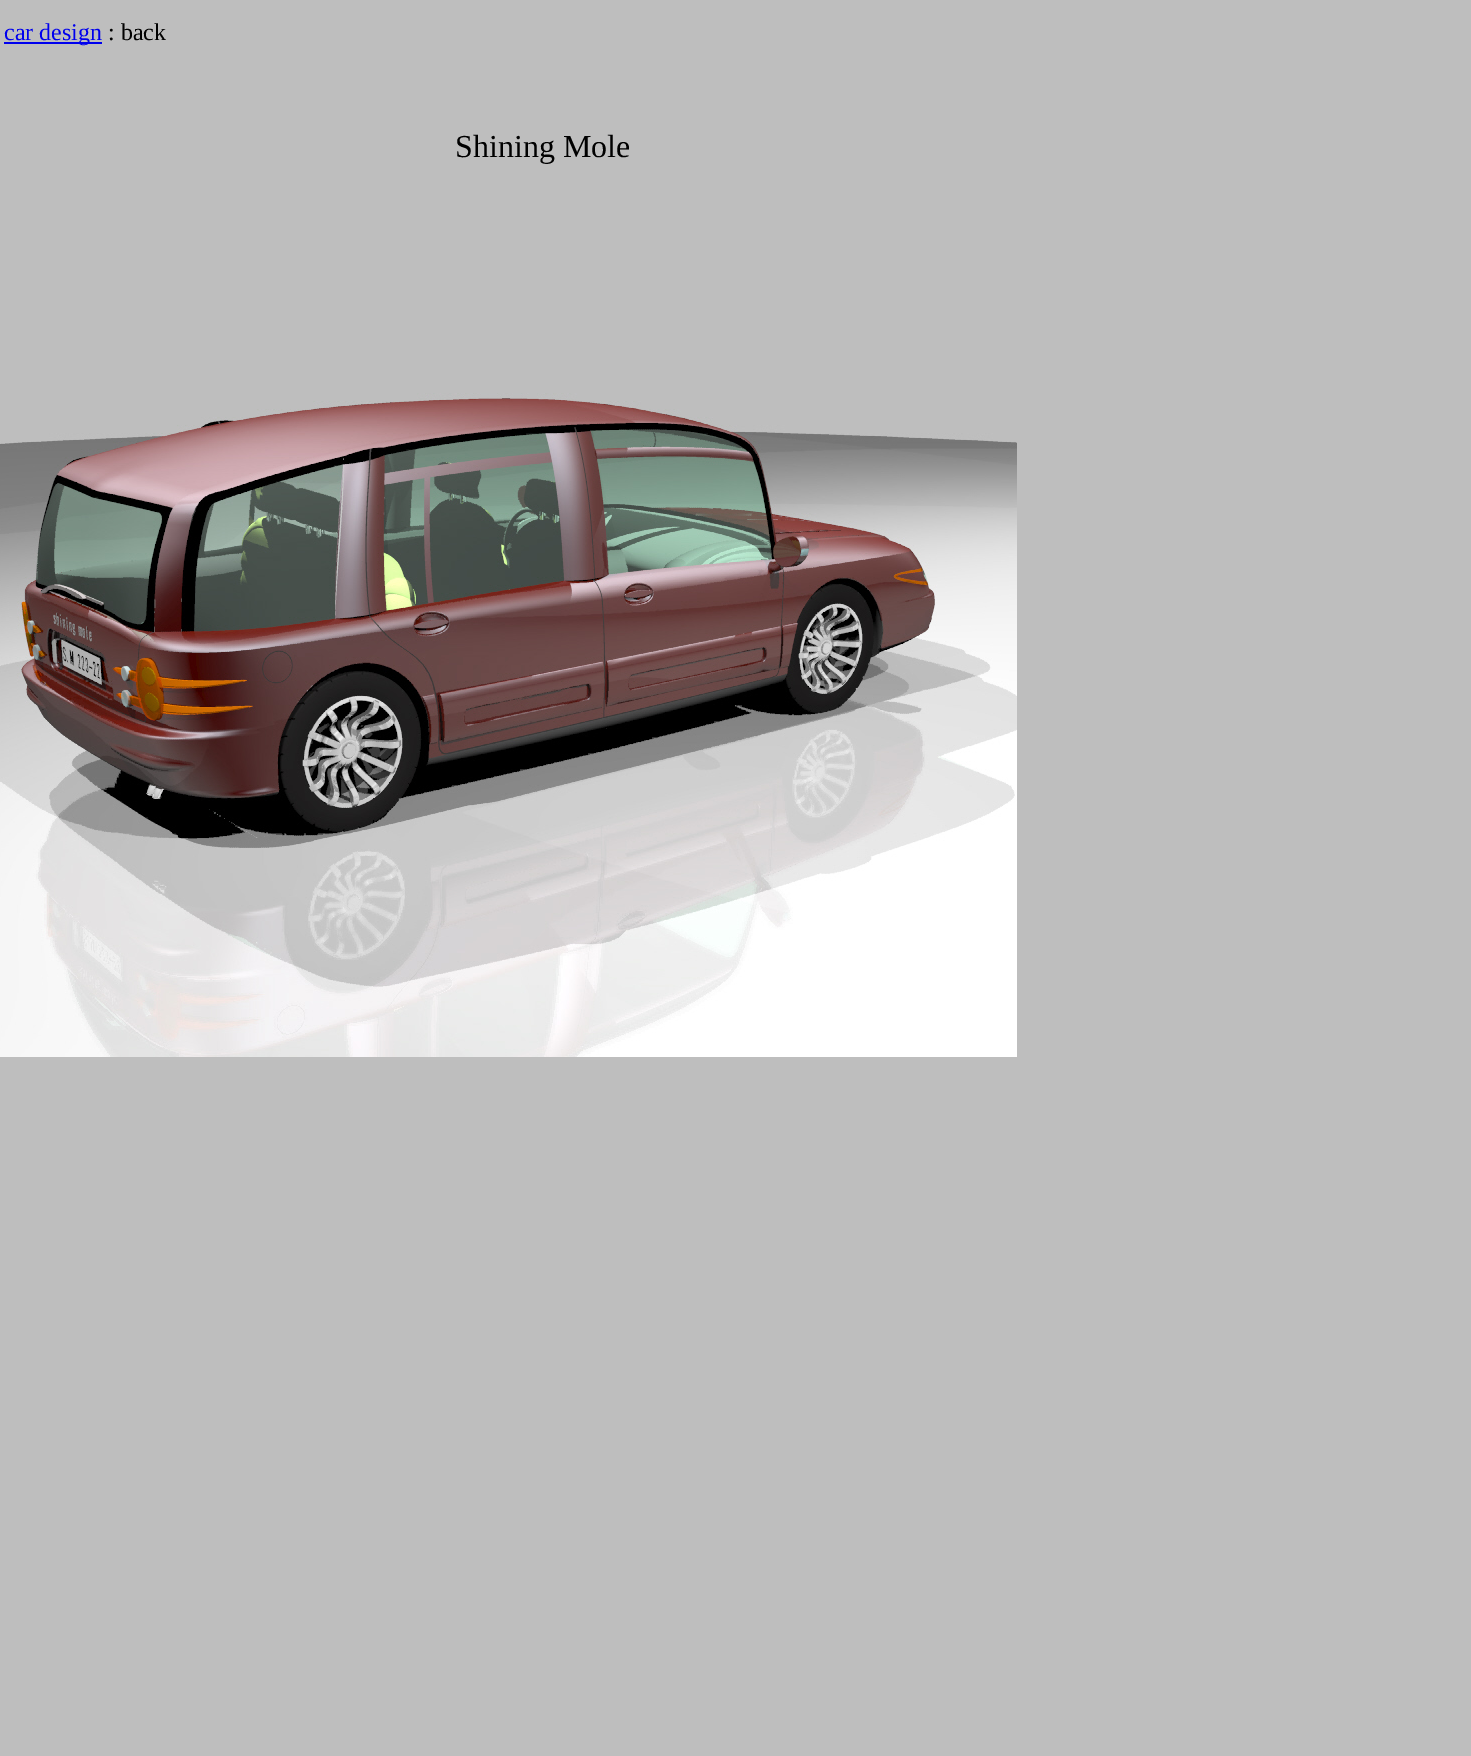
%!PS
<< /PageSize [1471 1756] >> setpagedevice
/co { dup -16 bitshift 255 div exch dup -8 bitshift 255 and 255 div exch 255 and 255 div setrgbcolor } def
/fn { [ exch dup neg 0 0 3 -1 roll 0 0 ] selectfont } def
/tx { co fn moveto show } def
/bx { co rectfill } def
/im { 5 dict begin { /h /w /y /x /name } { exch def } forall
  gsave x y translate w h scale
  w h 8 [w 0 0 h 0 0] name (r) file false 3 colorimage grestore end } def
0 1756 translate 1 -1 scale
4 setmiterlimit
0 0 1471 1756 16#BEBEBE bx
4 42 98 2 16#0000EE bx
(media/1.raw) 0 393 1017 664 im
(car design) 4 40 /LiberationSerif-Regular 24 16#0000EE tx
(: back) 108 40 /LiberationSerif-Regular 24 16#000000 tx
(Shining Mole) 455 157 /LiberationSerif-Regular 32 16#000000 tx
showpage
